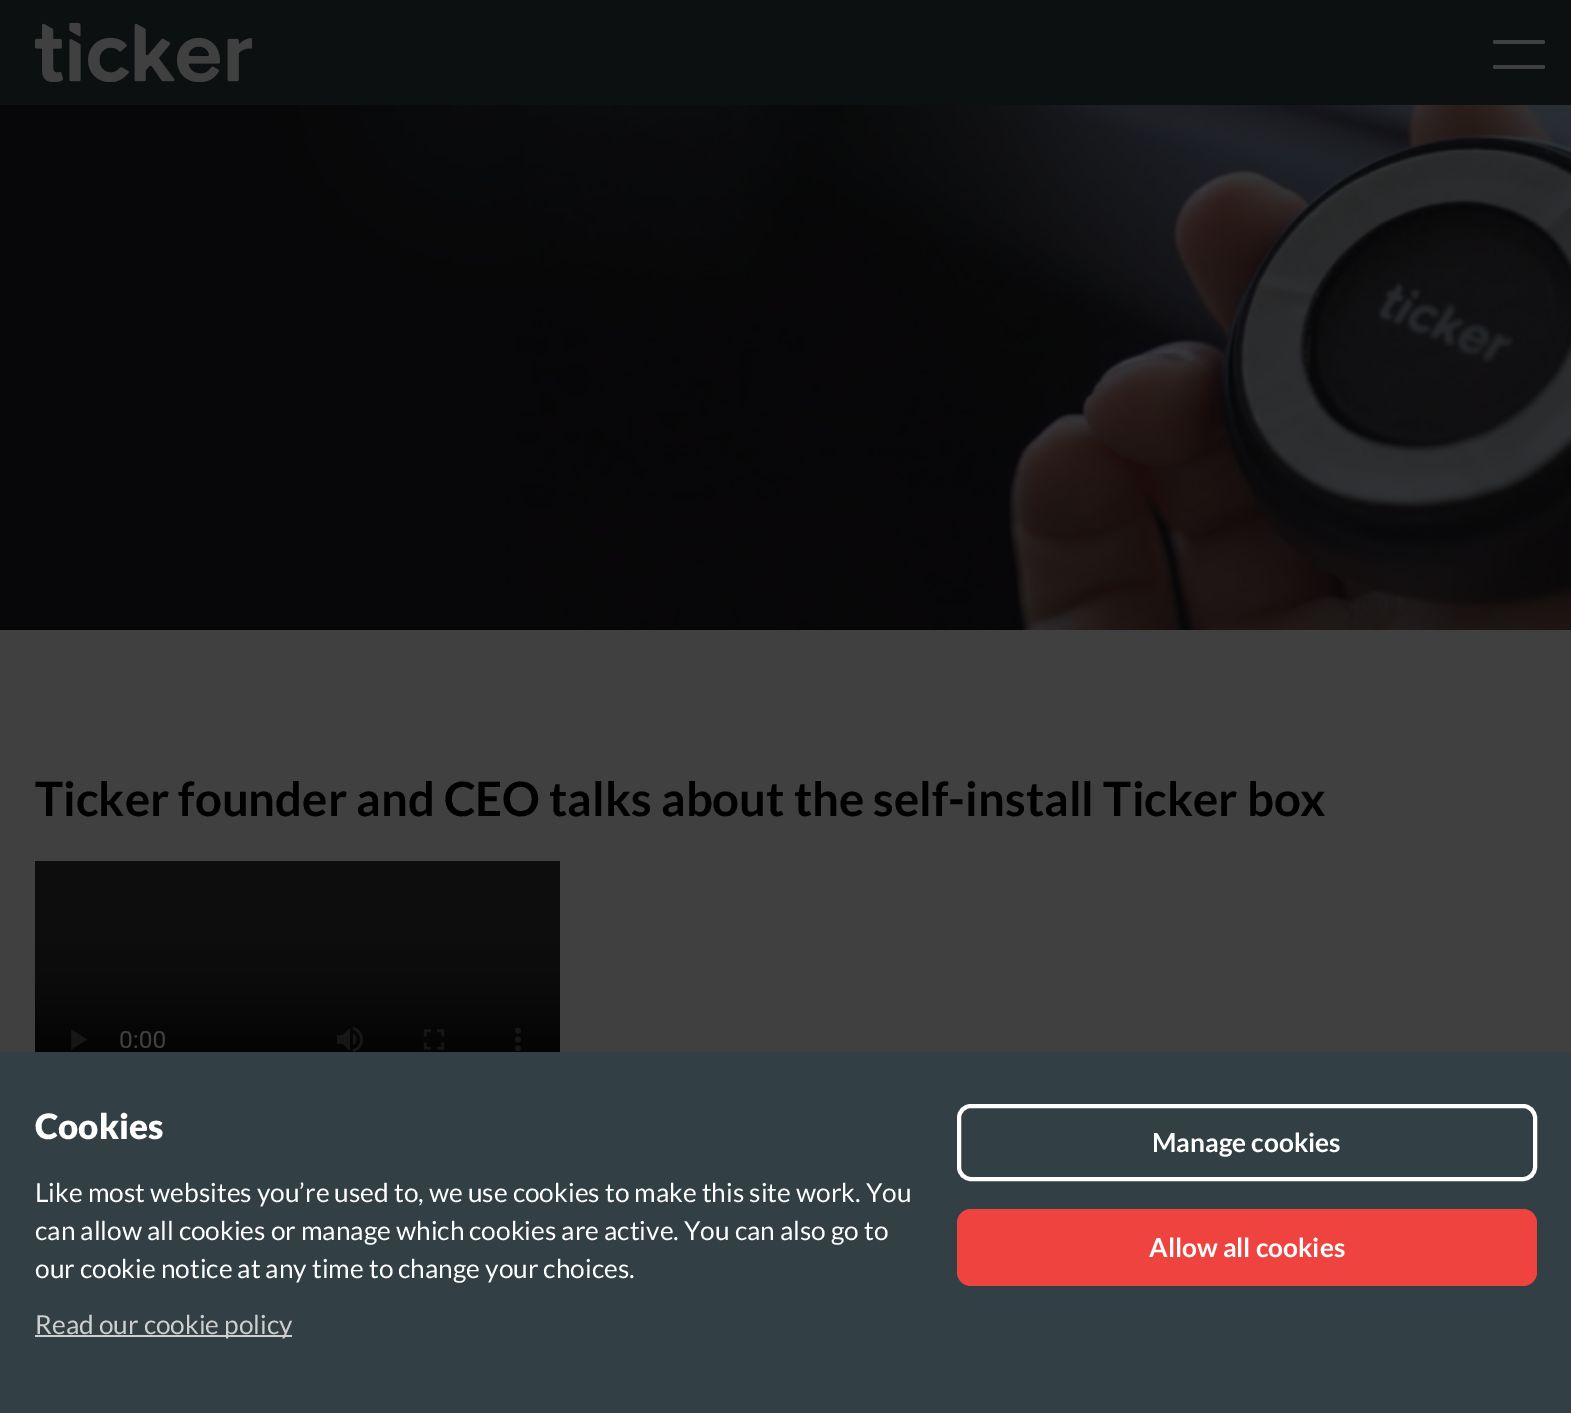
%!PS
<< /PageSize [1571 1413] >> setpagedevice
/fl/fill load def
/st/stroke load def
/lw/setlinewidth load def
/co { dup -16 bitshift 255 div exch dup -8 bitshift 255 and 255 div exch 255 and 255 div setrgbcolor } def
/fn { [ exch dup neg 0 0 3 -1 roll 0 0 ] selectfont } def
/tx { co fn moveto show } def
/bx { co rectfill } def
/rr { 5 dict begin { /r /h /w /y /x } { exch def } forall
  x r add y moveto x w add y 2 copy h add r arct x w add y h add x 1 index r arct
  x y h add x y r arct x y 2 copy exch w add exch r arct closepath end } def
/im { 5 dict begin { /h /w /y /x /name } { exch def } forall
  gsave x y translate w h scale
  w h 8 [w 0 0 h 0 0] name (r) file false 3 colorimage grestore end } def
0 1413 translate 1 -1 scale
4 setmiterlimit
0 0 1571 1413 16#404040 bx
0 0 1571 105 16#0D1011 bx
(media/1.raw) 35 23 217 59 im
16#404040 co
1493 40 52 4 2 rr fl
1493 65 52 4 2 rr fl
(media/2.raw) 0 105 1571 525 im
(media/3.raw) 35 861 525 191 im
0 1052 1571 361 16#323F44 bx
35 1335 257 2 16#CECECE bx
16#FFFFFF co
4 lw
959 1106 576 73 12 rr st
16#EF4340 co
957 1209 580 77 14 rr fl
(Ticker founder and CEO talks about the self-install Ticker box) 35 816 /Lato-Bold 47.25 16#000000 tx
(Cookies) 35 1139 /Lato-Black 35 16#FFFFFF tx
(Like most websites you’re used to, we use cookies to make this site work. You) 35 1202 /Lato-Regular 26.25 16#FFFFFF tx
(can allow all cookies or manage which cookies are active. You can also go to) 35 1240 /Lato-Regular 26.25 16#FFFFFF tx
(our cookie notice at any time to change your choices.) 35 1278 /Lato-Regular 26.25 16#FFFFFF tx
(Read our cookie policy) 35 1334 /Lato-Regular 26.25 16#CECECE tx
(Manage cookies) 1152 1152 /Lato-Bold 26.25 16#FFFFFF tx
(Allow all cookies) 1149 1257 /Lato-Bold 26.25 16#FFFFFF tx
showpage
